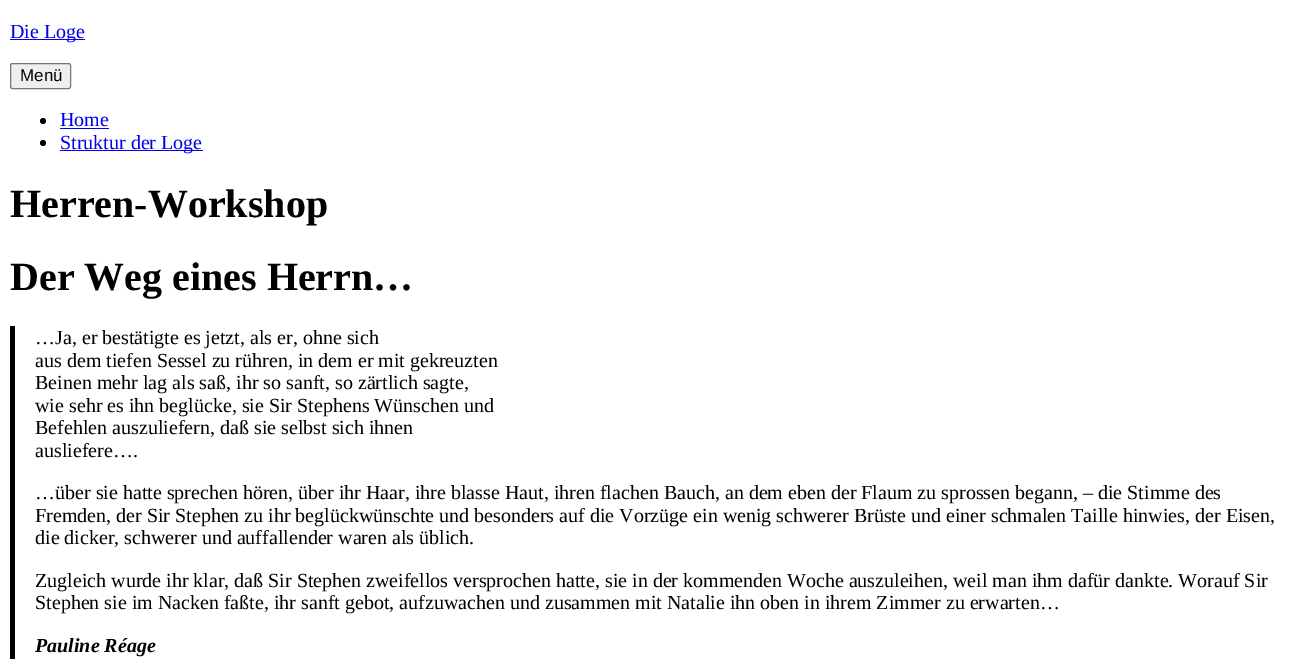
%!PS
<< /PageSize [1300 659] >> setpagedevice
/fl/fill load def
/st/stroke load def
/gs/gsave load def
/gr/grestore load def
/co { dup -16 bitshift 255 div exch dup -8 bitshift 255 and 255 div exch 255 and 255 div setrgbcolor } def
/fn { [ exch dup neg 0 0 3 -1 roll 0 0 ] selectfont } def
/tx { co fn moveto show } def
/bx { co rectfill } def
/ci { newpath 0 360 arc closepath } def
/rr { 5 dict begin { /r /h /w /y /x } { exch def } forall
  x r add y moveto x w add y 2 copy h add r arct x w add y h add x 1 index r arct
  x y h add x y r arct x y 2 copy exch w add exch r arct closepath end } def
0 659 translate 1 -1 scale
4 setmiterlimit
0 0 1300 659 16#FFFFFF bx
10 39 75 1 16#0000EE bx
16#EFEFEF co
10.5 63.5 60 25 2 rr gs fl gr
16#767676 co
st
16#000000 co
43 121 3 ci fl
60 128 49 1 16#0000EE bx
16#000000 co
43 143 3 ci fl
60 150 143 1 16#0000EE bx
10 326 5 333 16#000000 bx
(Die Loge) 10 38 /LiberationSerif-Regular 20 16#0000EE tx
(Menü) 20 81 /LiberationSans-Regular 17 16#000000 tx
(Home) 60 126 /LiberationSerif-Regular 20 16#0000EE tx
(Struktur der Loge) 60 149 /LiberationSerif-Regular 20 16#0000EE tx
(Herren-Workshop) 10 217 /LiberationSerif-Bold 40 16#000000 tx
(Der Weg eines Herrn…) 10 290 /LiberationSerif-Bold 40 16#000000 tx
(…Ja, er bestätigte es jetzt, als er, ohne sich) 35 344 /LiberationSerif-Regular 20 16#000000 tx
(aus dem tiefen Sessel zu rühren, in dem er mit gekreuzten) 35 367 /LiberationSerif-Regular 20 16#000000 tx
(Beinen mehr lag als saß, ihr so sanft, so zärtlich sagte,) 35 389 /LiberationSerif-Regular 20 16#000000 tx
(wie sehr es ihn beglücke, sie Sir Stephens Wünschen und) 35 412 /LiberationSerif-Regular 20 16#000000 tx
(Befehlen auszuliefern, daß sie selbst sich ihnen) 35 434 /LiberationSerif-Regular 20 16#000000 tx
(ausliefere….) 35 457 /LiberationSerif-Regular 20 16#000000 tx
(…über sie hatte sprechen hören, über ihr Haar, ihre blasse Haut, ihren flachen Bauch, an dem eben der Flaum zu sprossen begann, – die Stimme des) 35 499 /LiberationSerif-Regular 20 16#000000 tx
(Fremden, der Sir Stephen zu ihr beglückwünschte und besonders auf die Vorzüge ein wenig schwerer Brüste und einer schmalen Taille hinwies, der Eisen,) 35 522 /LiberationSerif-Regular 20 16#000000 tx
(die dicker, schwerer und auffallender waren als üblich.) 35 544 /LiberationSerif-Regular 20 16#000000 tx
(Zugleich wurde ihr klar, daß Sir Stephen zweifellos versprochen hatte, sie in der kommenden Woche auszuleihen, weil man ihm dafür dankte. Worauf Sir) 35 587 /LiberationSerif-Regular 20 16#000000 tx
(Stephen sie im Nacken faßte, ihr sanft gebot, aufzuwachen und zusammen mit Natalie ihn oben in ihrem Zimmer zu erwarten…) 35 609 /LiberationSerif-Regular 20 16#000000 tx
(Pauline Réage) 35 652 /LiberationSerif-BoldItalic 20 16#000000 tx
showpage
